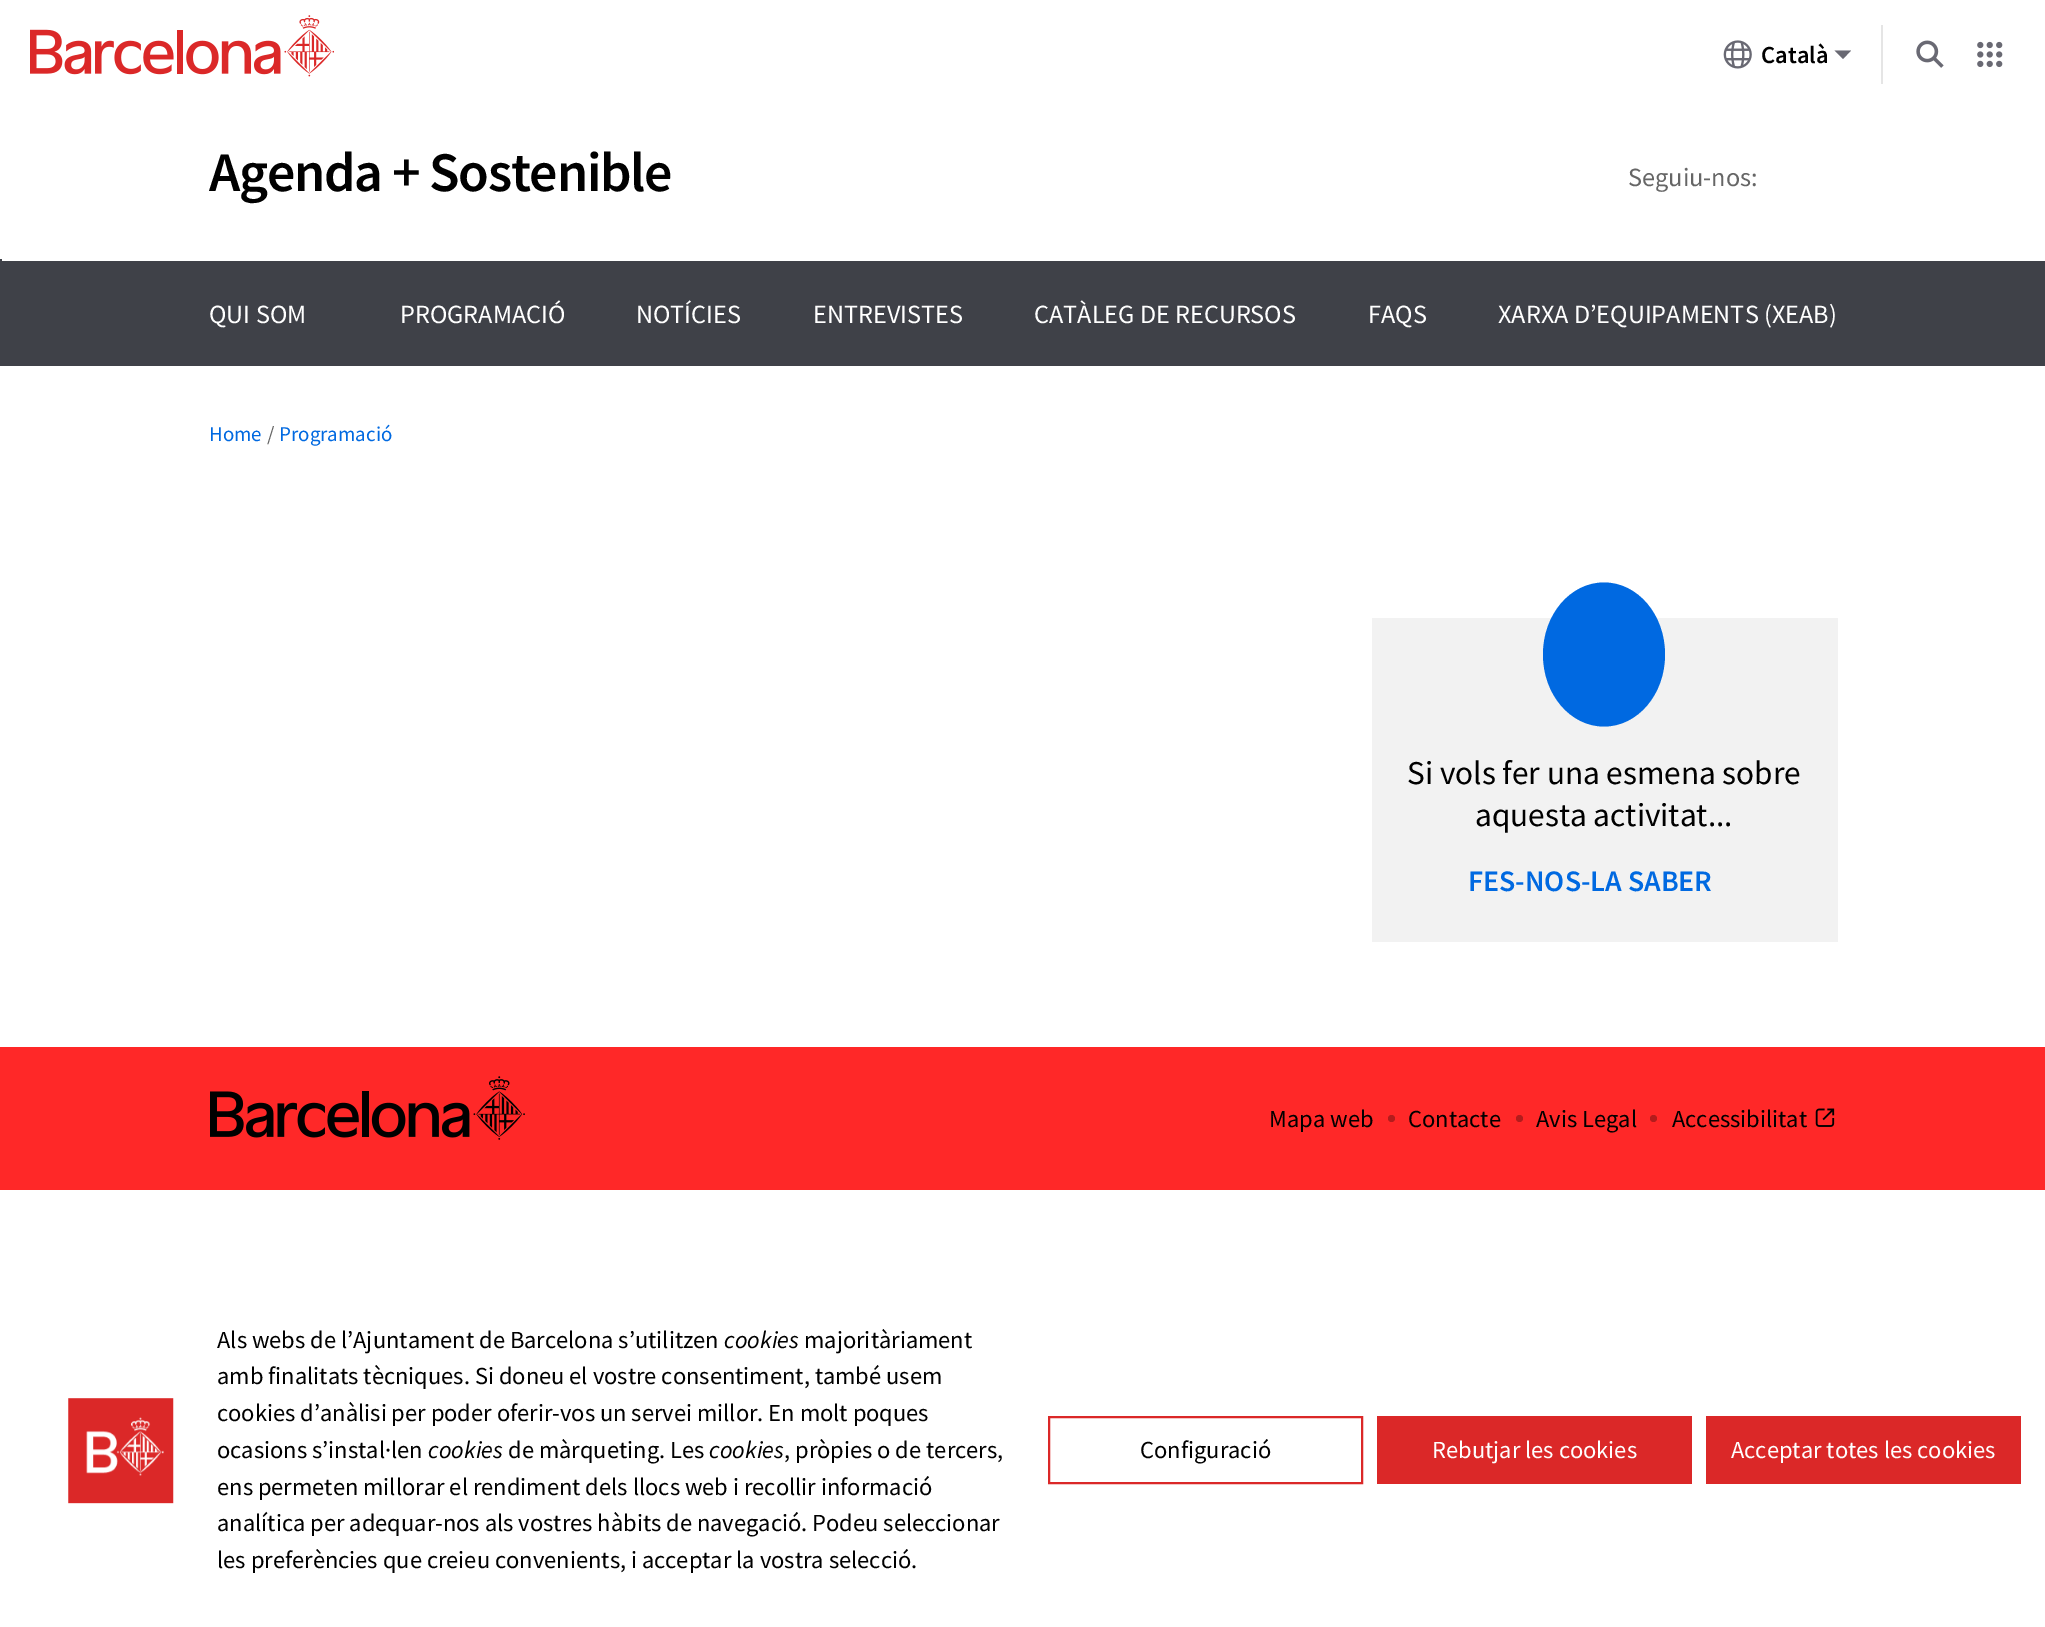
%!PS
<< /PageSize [2045 1627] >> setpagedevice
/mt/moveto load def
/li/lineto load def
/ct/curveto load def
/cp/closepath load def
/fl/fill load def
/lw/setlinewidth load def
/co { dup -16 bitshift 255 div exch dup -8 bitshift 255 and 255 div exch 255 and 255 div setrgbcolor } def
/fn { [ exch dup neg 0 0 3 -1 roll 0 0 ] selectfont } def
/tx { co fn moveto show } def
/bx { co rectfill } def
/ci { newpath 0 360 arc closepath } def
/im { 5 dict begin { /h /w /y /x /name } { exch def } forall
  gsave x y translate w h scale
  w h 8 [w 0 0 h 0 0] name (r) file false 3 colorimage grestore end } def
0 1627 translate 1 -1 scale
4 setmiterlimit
0 0 2045 1627 16#FFFFFF bx
(media/1.raw) 30 15 304 62 im
1881 25 2 59 16#E5E5E5 bx
(media/2.raw) 1723 40 29 29 im
16#696973 co
1834.5 50.5 mt 1843 59 li 1851 50.5 li cp fl
(media/3.raw) 1916 40 28 28 im
(media/4.raw) 1977 41 26 27 im
0 259 2045 107 16#3F4148 bx
2 259 2043 2 16#FFFFFF bx
1372 618 466 324 16#F2F2F2 bx
16#0069E1 co
1604 582.5 mt 1637.5 582.5 1665 614.5 1665 654.5 ct 1665 694.5 1637.5 726.5 1604 726.5 ct 1570.5 726.5 1543 694.5 1543 654.5 ct 1543 614.5 1570.5 582.5 1604 582.5 ct cp fl
0 1047 2045 143 16#FF2828 bx
(media/5.raw) 210 1076 315 64 im
16#B31C1C co
1391.5 1118.5 3.5 ci fl
1519.5 1118.5 3.5 ci fl
1653.5 1118.5 3.5 ci fl
(media/6.raw) 1815 1108 20 19 im
(media/7.raw) 68 1398 106 106 im
16#DB2828 co
2 lw
1049 1417 313 66 rectstroke
1377 1416 315 68 16#DB2828 bx
1706 1416 315 68 16#DB2828 bx
(Català) 1761 63 /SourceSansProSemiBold-SemiBold 24.5 16#000000 tx
/SourceSansProSemiBold-SemiBold 56 fn
209 191 mt -1.3 0 (Agenda + Sostenible) ashow
(Seguiu-nos:) 1628 186 /SourceSansPro-Regular 26.25 16#666666 tx
(QUI SOM) 209 323 /SourceSansPro-Regular 26.25 16#FFFFFF tx
(PROGRAMACIÓ) 400 323 /SourceSansPro-Regular 26.25 16#FFFFFF tx
(NOTÍCIES) 636 323 /SourceSansPro-Regular 26.25 16#FFFFFF tx
(ENTREVISTES) 813 323 /SourceSansPro-Regular 26.25 16#FFFFFF tx
(CATÀLEG DE RECURSOS) 1034 323 /SourceSansPro-Regular 26.25 16#FFFFFF tx
(FAQS) 1368 323 /SourceSansPro-Regular 26.25 16#FFFFFF tx
(XARXA D’EQUIPAMENTS \(XEAB\)) 1498 323 /SourceSansPro-Regular 26.25 16#FFFFFF tx
(Home) 209 441 /SourceSansPro-Regular 21 16#0069E1 tx
(/) 267 441 /SourceSansPro-Regular 21 16#666666 tx
(Programació) 279 441 /SourceSansPro-Regular 21 16#0069E1 tx
(Si vols fer una esmena sobre) 1407 784 /SourceSansPro-Regular 33.25 16#000000 tx
(aquesta activitat...) 1475 826 /SourceSansPro-Regular 33.25 16#000000 tx
(FES-NOS-LA SABER) 1468 891 /SourceSansProSemiBold-SemiBold 29.75 16#0069E1 tx
(Mapa web) 1269 1127 /SourceSansPro-Regular 24.5 16#000000 tx
(Contacte) 1408 1127 /SourceSansPro-Regular 24.5 16#000000 tx
(Avis Legal) 1536 1127 /SourceSansPro-Regular 24.5 16#000000 tx
(Accessibilitat) 1672 1127 /SourceSansPro-Regular 24.5 16#000000 tx
(Als webs de l’Ajuntament de Barcelona s’utilitzen) 217 1348 /SourceSansPro-Regular 24.5 16#000000 tx
(cookies) 724 1348 /SourceSansPro-Italic 24.5 16#000000 tx
(majoritàriament) 804 1348 /SourceSansPro-Regular 24.5 16#000000 tx
(amb finalitats tècniques. Si doneu el vostre consentiment, també usem) 217 1384 /SourceSansPro-Regular 24.5 16#000000 tx
(cookies d’anàlisi per poder oferir-vos un servei millor. En molt poques) 217 1421 /SourceSansPro-Regular 24.5 16#000000 tx
(ocasions s’instal·len) 217 1458 /SourceSansPro-Regular 24.5 16#000000 tx
(cookies) 428 1458 /SourceSansPro-Italic 24.5 16#000000 tx
(de màrqueting. Les) 508 1458 /SourceSansPro-Regular 24.5 16#000000 tx
(cookies) 709 1458 /SourceSansPro-Italic 24.5 16#000000 tx
(, pròpies o de tercers,) 784 1458 /SourceSansPro-Regular 24.5 16#000000 tx
(ens permeten millorar el rendiment dels llocs web i recollir informació) 217 1495 /SourceSansPro-Regular 24.5 16#000000 tx
(analítica per adequar-nos als vostres hàbits de navegació. Podeu seleccionar) 217 1531 /SourceSansPro-Regular 24.5 16#000000 tx
(les preferències que creieu convenients, i acceptar la vostra selecció.) 217 1568 /SourceSansPro-Regular 24.5 16#000000 tx
(Configuració) 1140 1458 /SourceSansPro-Regular 24.5 16#000000 tx
(Rebutjar les cookies) 1432 1458 /SourceSansPro-Regular 24.5 16#FFFFFF tx
(Acceptar totes les cookies) 1731 1458 /SourceSansPro-Regular 24.5 16#FFFFFF tx
showpage
